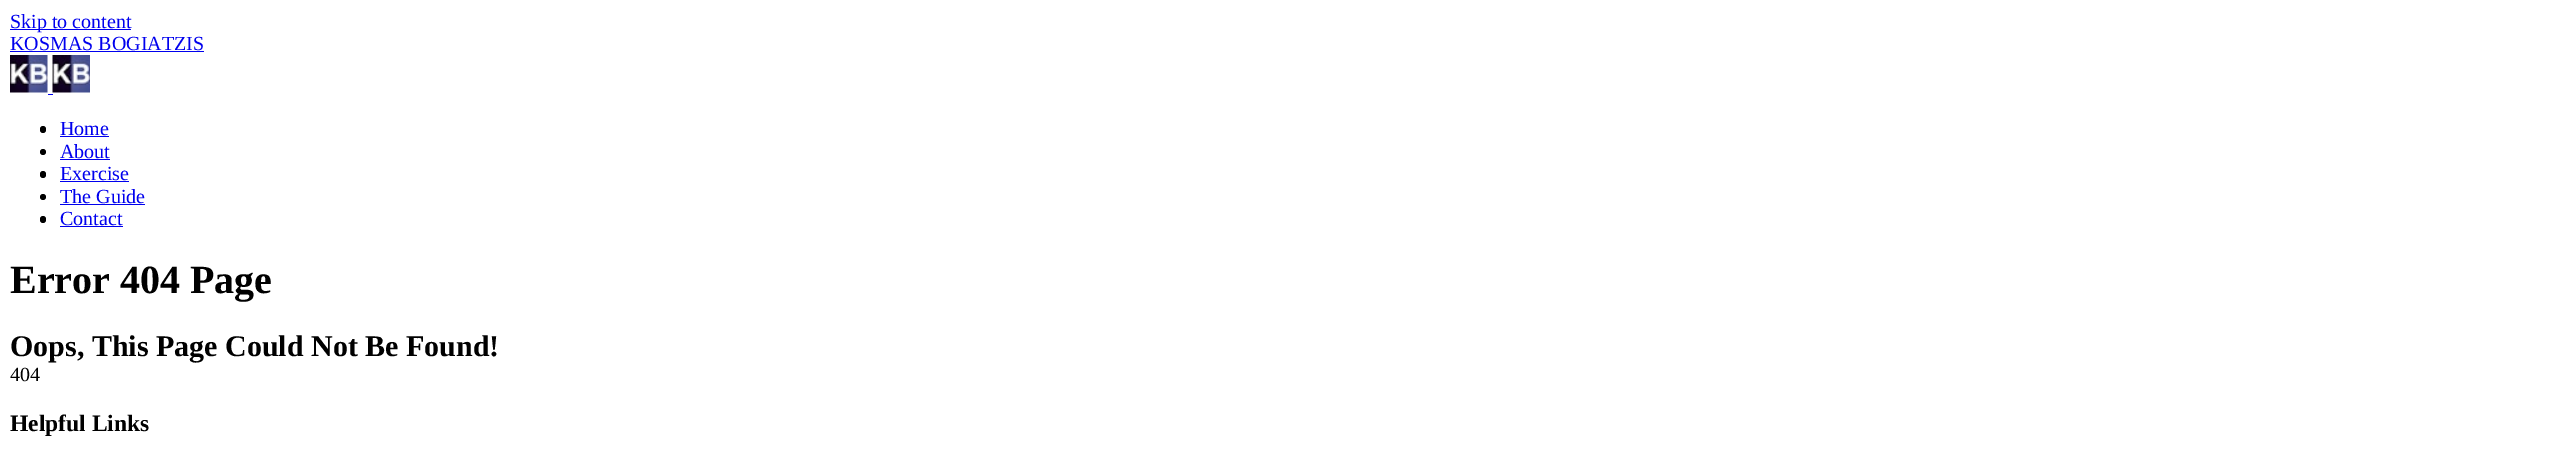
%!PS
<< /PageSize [2563 453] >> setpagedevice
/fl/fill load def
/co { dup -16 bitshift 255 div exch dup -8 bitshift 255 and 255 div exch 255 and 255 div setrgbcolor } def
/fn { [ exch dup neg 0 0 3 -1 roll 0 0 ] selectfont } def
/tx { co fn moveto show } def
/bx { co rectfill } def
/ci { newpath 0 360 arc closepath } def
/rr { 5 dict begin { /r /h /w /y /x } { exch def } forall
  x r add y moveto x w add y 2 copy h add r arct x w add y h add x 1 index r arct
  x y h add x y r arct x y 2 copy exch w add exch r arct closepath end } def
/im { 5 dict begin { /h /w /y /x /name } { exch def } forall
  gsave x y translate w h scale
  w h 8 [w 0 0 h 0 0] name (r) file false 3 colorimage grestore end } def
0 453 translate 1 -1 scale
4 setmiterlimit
0 0 2563 453 16#FFFFFF bx
10 29 121 1 16#0000EE bx
10 51 194 1 16#0000EE bx
(media/1.raw) 10 55 38 38 im
(media/2.raw) 52 55 38 38 im
48 94 5 1 16#0000EE bx
16#000000 co
40 126 6 7 3 rr fl
60 136 49 1 16#0000EE bx
16#000000 co
43 152 3 ci fl
60 159 50 1 16#0000EE bx
16#000000 co
40 171 6 7 3 rr fl
60 181 69 1 16#0000EE bx
16#000000 co
43 197 3 ci fl
60 204 85 1 16#0000EE bx
16#000000 co
40 216 6 7 3 rr fl
60 226 63 1 16#0000EE bx
(Skip to content) 10 28 /LiberationSerif-Regular 20 16#0000EE tx
(KOSMAS BOGIATZIS) 10 50 /LiberationSerif-Regular 20 16#0000EE tx
(Home) 60 135 /LiberationSerif-Regular 20 16#0000EE tx
(About) 60 158 /LiberationSerif-Regular 20 16#0000EE tx
(Exercise) 60 180 /LiberationSerif-Regular 20 16#0000EE tx
(The Guide) 60 203 /LiberationSerif-Regular 20 16#0000EE tx
(Contact) 60 225 /LiberationSerif-Regular 20 16#0000EE tx
(Error 404 Page) 10 293 /LiberationSerif-Bold 40 16#000000 tx
(Oops, This Page Could Not Be Found!) 10 356 /LiberationSerif-Bold 30 16#000000 tx
(404) 10 381 /LiberationSerif-Regular 20 16#000000 tx
(Helpful Links) 10 431 /LiberationSerif-Bold 23.5 16#000000 tx
showpage
